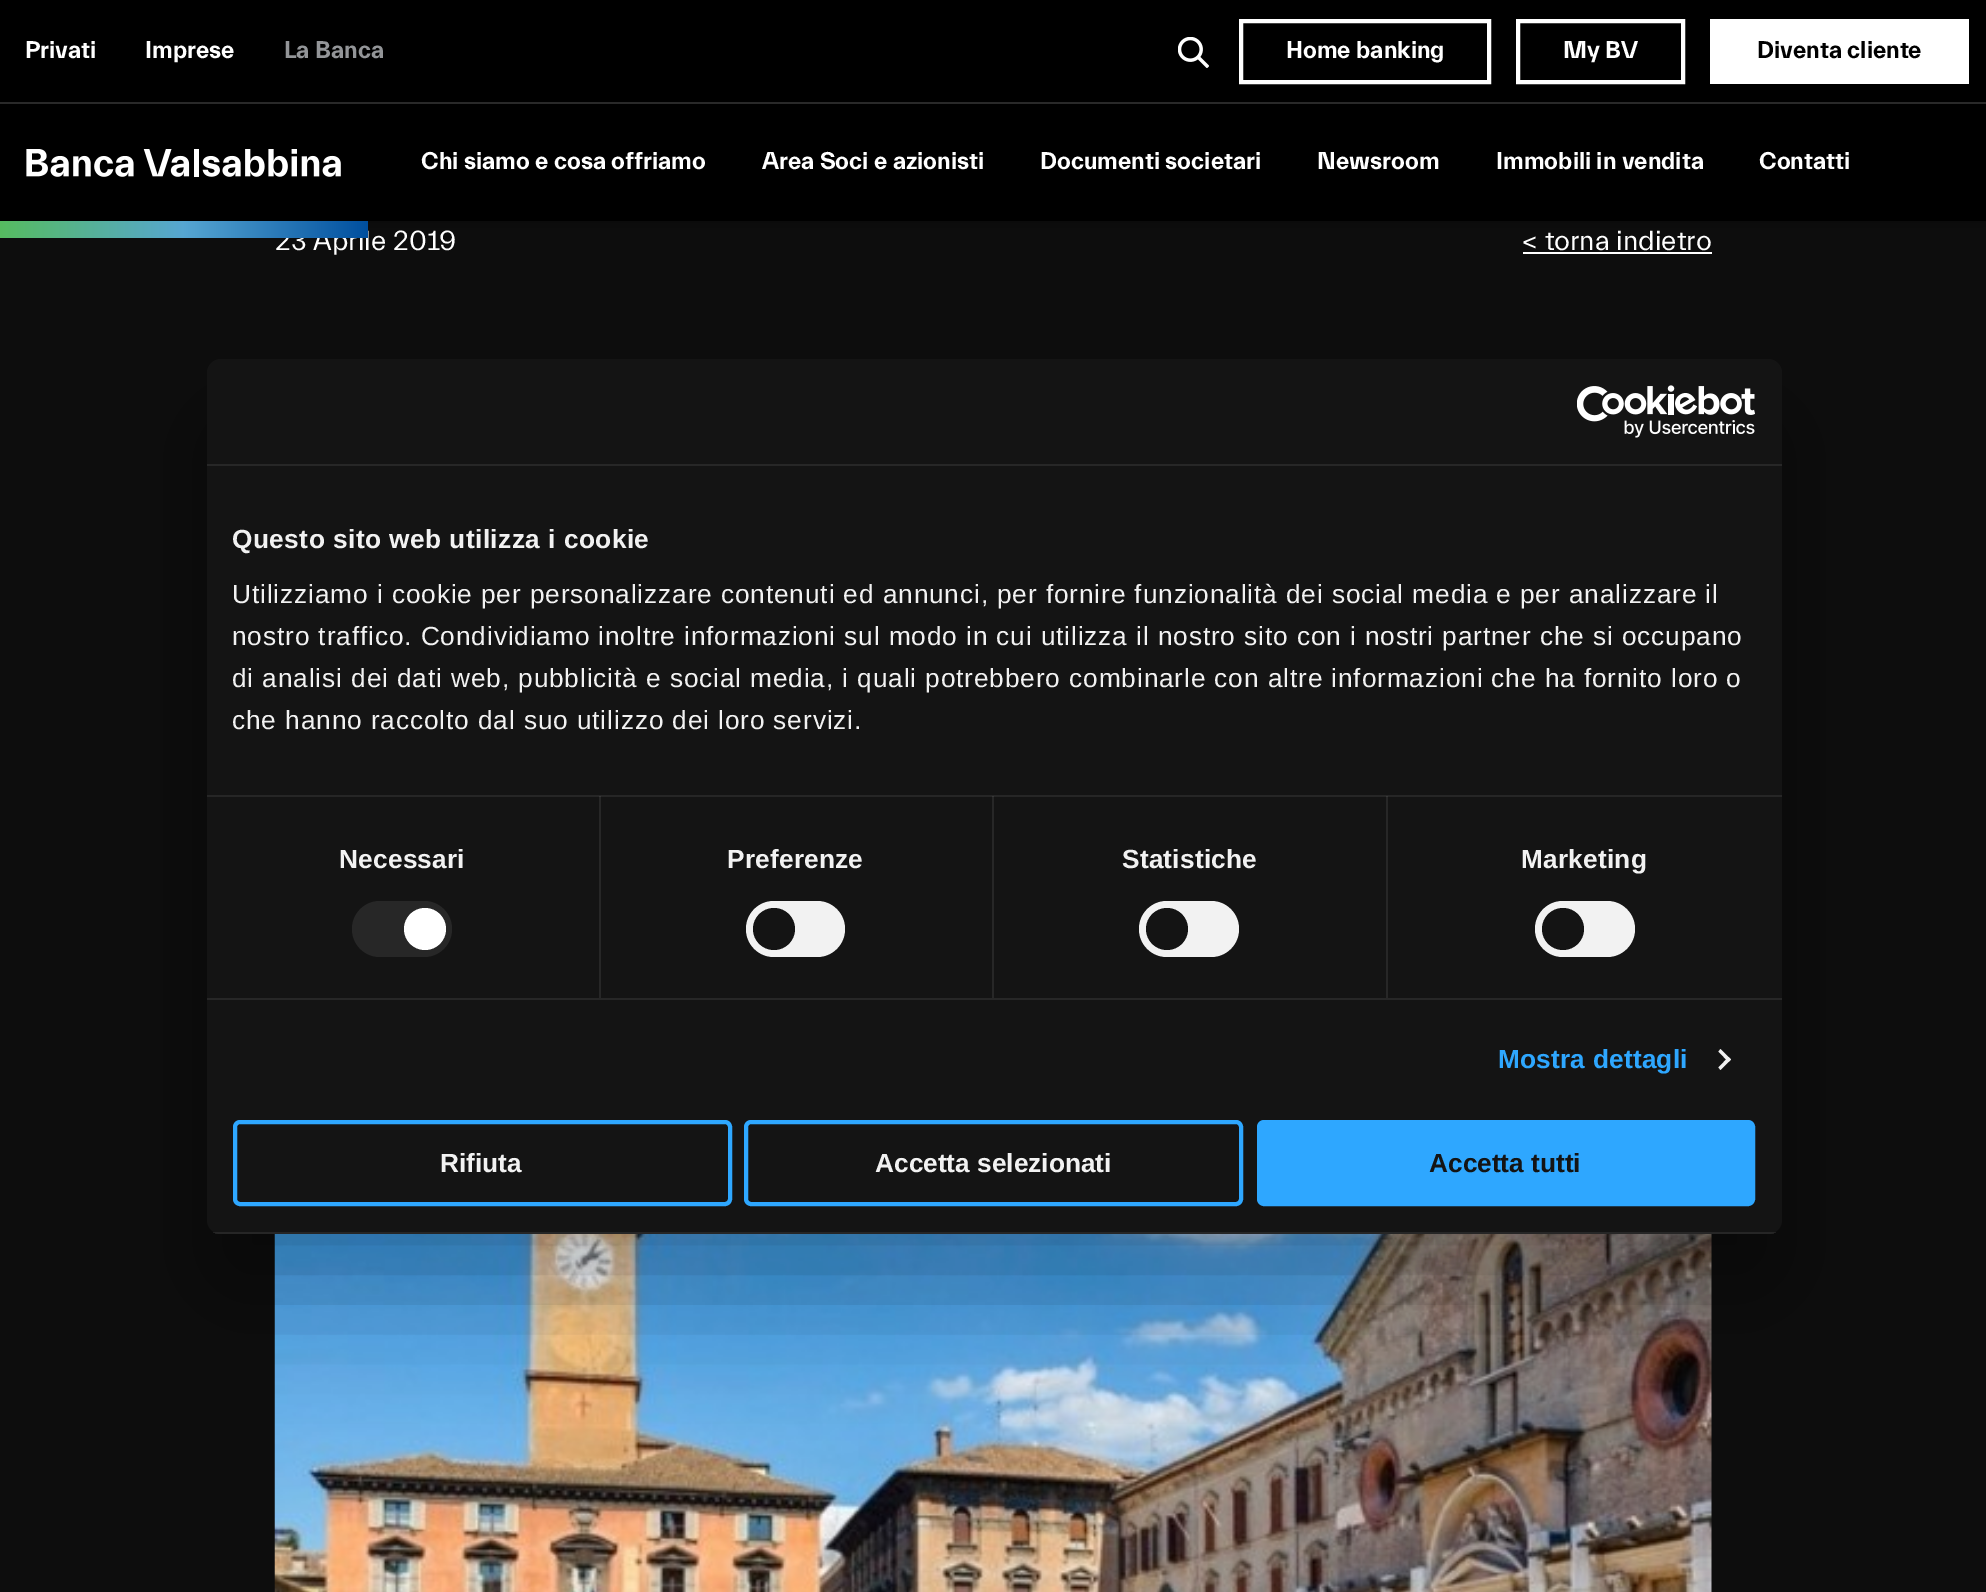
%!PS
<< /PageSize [1986 1592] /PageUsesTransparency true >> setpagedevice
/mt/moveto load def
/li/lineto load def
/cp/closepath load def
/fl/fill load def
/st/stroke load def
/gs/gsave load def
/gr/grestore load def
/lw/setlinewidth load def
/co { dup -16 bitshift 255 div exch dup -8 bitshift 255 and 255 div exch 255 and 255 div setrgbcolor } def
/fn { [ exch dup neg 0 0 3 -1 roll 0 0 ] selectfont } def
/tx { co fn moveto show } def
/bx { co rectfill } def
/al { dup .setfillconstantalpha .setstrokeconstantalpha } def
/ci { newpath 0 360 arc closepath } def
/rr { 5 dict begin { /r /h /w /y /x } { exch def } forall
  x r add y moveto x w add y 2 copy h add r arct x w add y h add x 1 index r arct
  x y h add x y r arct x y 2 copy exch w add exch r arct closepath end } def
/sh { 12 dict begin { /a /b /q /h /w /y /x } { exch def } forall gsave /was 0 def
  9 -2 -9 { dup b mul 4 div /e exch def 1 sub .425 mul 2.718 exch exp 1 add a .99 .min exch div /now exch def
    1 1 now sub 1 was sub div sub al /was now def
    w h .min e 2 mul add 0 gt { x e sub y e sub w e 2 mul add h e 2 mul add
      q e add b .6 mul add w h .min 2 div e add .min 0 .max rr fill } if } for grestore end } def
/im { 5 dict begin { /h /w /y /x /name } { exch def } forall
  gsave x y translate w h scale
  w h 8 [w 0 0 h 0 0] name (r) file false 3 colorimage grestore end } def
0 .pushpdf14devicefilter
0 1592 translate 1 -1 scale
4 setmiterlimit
0 0 1986 1592 16#0D0D0D bx
16#000000 co
0 0 1986 221 0 9 .4 sh
0 0 1986 221 16#000000 bx
(media/1.raw) 1178 37 31 31 im
16#FFFFFF co
4 lw
1241 21 248 61 rectstroke
1518 21 165 61 rectstroke
1710 19 259 65 16#FFFFFF bx
0 102 1986 2 16#292929 bx
(media/2.raw) 26 149 315 28 im
1523 252 189 2 16#FFFFFF bx
(media/3.raw) 274 1234 1438 358 im
(Privati) 25 58 /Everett-Bold 24.5 16#FFFFFF tx
(Imprese) 145 58 /Everett-Bold 24.5 16#FFFFFF tx
(La Banca) 284 58 /Everett-Bold 24.5 16#939598 tx
(Home banking) 1286 58 /Everett-Bold 24.5 16#FFFFFF tx
(My BV) 1563 58 /Everett-Bold 24.5 16#FFFFFF tx
(Diventa cliente) 1757 58 /Everett-Bold 24.5 16#000000 tx
(Chi siamo e cosa offriamo) 421 169 /Everett-Bold 24.5 16#FFFFFF tx
(Area Soci e azionisti) 762 169 /Everett-Bold 24.5 16#FFFFFF tx
(Documenti societari) 1040 169 /Everett-Bold 24.5 16#FFFFFF tx
(Newsroom) 1317 169 /Everett-Bold 24.5 16#FFFFFF tx
(Immobili in vendita) 1496 169 /Everett-Bold 24.5 16#FFFFFF tx
(Contatti) 1759 169 /Everett-Bold 24.5 16#FFFFFF tx
(23 Aprile 2019) 275 250 /Everett-Regular 28 16#FFFFFF tx
gs 0 221 mt 368 221 li 368 238 li 0 238 li cp clip newpath
<< /ShadingType 2 /ColorSpace /DeviceRGB /Coords [0 229 368 229] /Extend [true true] /Function << /FunctionType 3 /Domain [0 1] /Functions [<< /FunctionType 2 /Domain [0 1] /C0 [.337 .737 .376] /C1 [.337 .651 .824] /N 1 >> << /FunctionType 2 /Domain [0 1] /C0 [.337 .651 .824] /C1 [0 .31 .624] /N 1 >>] /Bounds [.5] /Encode [0 1 0 1] >> >> shfill gr
(< torna indietro) 1522 250 /Everett-Regular 28 16#FFFFFF tx
16#000000 co
207 415 1575 875 14 59.5 .3 sh
16#141414 co
207 359 1575 875 14 rr fl
207 464 1575 2 16#272727 bx
(media/4.raw) 1577 385 178 53 im
/LiberationSans-Bold 26.25 fn
16#F2F2F2 co
232 548 mt .45 0 (Questo sito web utilizza i cookie) ashow
/LiberationSans-Regular 26.25 fn
232 603 mt .88 0 (Utilizziamo i cookie per personalizzare contenuti ed annunci, per fornire funzionalità dei social media e per analizzare il) ashow
232 645 mt .88 0 (nostro traffico. Condividiamo inoltre informazioni sul modo in cui utilizza il nostro sito con i nostri partner che si occupano) ashow
232 687 mt .88 0 (di analisi dei dati web, pubblicità e social media, i quali potrebbero combinarle con altre informazioni che ha fornito loro o) ashow
232 729 mt .88 0 (che hanno raccolto dal suo utilizzo dei loro servizi.) ashow
207 998 1575 2 16#272727 bx
599 796 2 202 16#272727 bx
/LiberationSans-Bold 26.25 fn
16#F2F2F2 co
339 868 mt .2 0 (Necessari) ashow
16#272727 co
352 901 100 56 28 rr fl
16#FFFFFF co
425 929 21 ci fl
992 796 2 202 16#272727 bx
16#F2F2F2 co
727 868 mt .2 0 (Preferenze) ashow
746 901 99 56 28 rr fl
16#141414 co
774 929 21 ci fl
1386 796 2 202 16#272727 bx
0.08 al
207 795 1575 2 16#FFFFFF bx
1 al
16#F2F2F2 co
1122 868 mt .2 0 (Statistiche) ashow
1139 901 100 56 28 rr fl
16#141414 co
1167 929 21 ci fl
16#F2F2F2 co
1521 868 mt .2 0 (Marketing) ashow
1535 901 100 56 28 rr fl
16#141414 co
1563 929 21 ci fl
16#2EA7FF co
1498 1068 mt .2 0 (Mostra dettagli) ashow
16#F2F2F2 co
1720.5 1049 mt 1731 1059.5 li 1728.5 1062 li 1718.5 1051.5 li cp fl
1728.5 1057 mt 1731 1059.5 li 1720.5 1070 li 1718.5 1067.5 li cp fl
gs
207 359 1575 875 14 rr clip newpath
0.08 al
207 1232 1575 2 16#FFFFFF bx
gr
16#2EA7FF co
235 1122 495 82 5 rr st
(Rifiuta) 440 1172 /LiberationSans-Bold 26.25 16#F2F2F2 tx
16#2EA7FF co
746 1122 495 82 5 rr st
(Accetta selezionati) 875 1172 /LiberationSans-Bold 26.25 16#F2F2F2 tx
16#2EA7FF co
1259 1122 494 82 5 rr gs fl gr
st
(Accetta tutti) 1429 1172 /LiberationSans-Bold 26.25 16#141414 tx
.poppdf14devicefilter showpage
